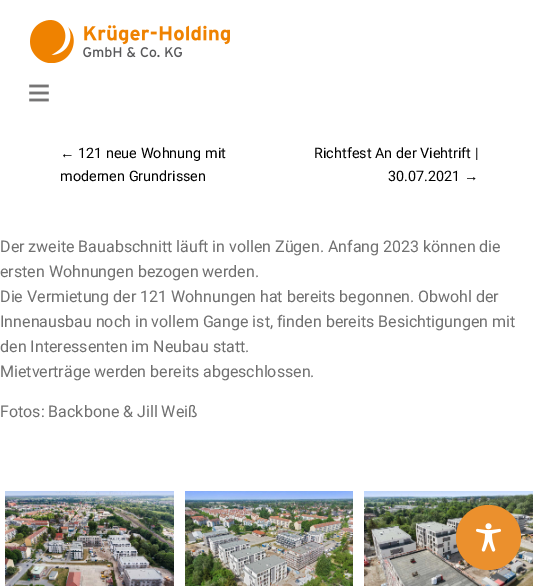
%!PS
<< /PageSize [538 587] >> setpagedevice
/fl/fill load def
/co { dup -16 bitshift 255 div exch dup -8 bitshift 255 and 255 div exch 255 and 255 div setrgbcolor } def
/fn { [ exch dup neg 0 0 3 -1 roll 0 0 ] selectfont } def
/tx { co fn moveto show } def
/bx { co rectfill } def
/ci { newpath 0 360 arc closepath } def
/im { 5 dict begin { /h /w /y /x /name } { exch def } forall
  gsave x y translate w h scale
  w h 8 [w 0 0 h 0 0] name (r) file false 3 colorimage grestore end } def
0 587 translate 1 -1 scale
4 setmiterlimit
0 0 538 587 16#FFFFFF bx
(media/1.raw) 30 20 200 43 im
(media/2.raw) 29 84 20 18 im
(media/3.raw) 5 491 169 95 im
(media/4.raw) 185 491 168 95 im
(media/5.raw) 364 491 169 95 im
16#EB902D co
488.5 537.5 32.5 ci fl
(media/6.raw) 476 523 25 29 im
(←) 60 158 /LiberationSans-Regular 14.4 16#000000 tx
(121 neue Wohnung mit) 78 158 /Roboto-Regular 14.4 16#000000 tx
(modernen Grundrissen) 60 181 /Roboto-Regular 14.4 16#000000 tx
(Richtfest An der Viehtrift |) 314 158 /Roboto-Regular 14.4 16#000000 tx
(30.07.2021) 388 181 /Roboto-Regular 14.4 16#000000 tx
(→) 464 181 /LiberationSans-Regular 14.4 16#000000 tx
(Der zweite Bauabschnitt läuft in vollen Zügen. Anfang 2023 können die) 0 252 /Roboto-Regular 16 16#707070 tx
(ersten Wohnungen bezogen werden.) 0 277 /Roboto-Regular 16 16#707070 tx
(Die Vermietung der 121 Wohnungen hat bereits begonnen. Obwohl der) 0 302 /Roboto-Regular 16 16#707070 tx
(Innenausbau noch in vollem Gange ist, finden bereits Besichtigungen mit) 0 327 /Roboto-Regular 16 16#707070 tx
(den Interessenten im Neubau statt.) 0 352 /Roboto-Regular 16 16#707070 tx
(Mietverträge werden bereits abgeschlossen.) 0 377 /Roboto-Regular 16 16#707070 tx
(Fotos: Backbone & Jill Weiß) 0 417 /Roboto-Regular 16 16#707070 tx
showpage
